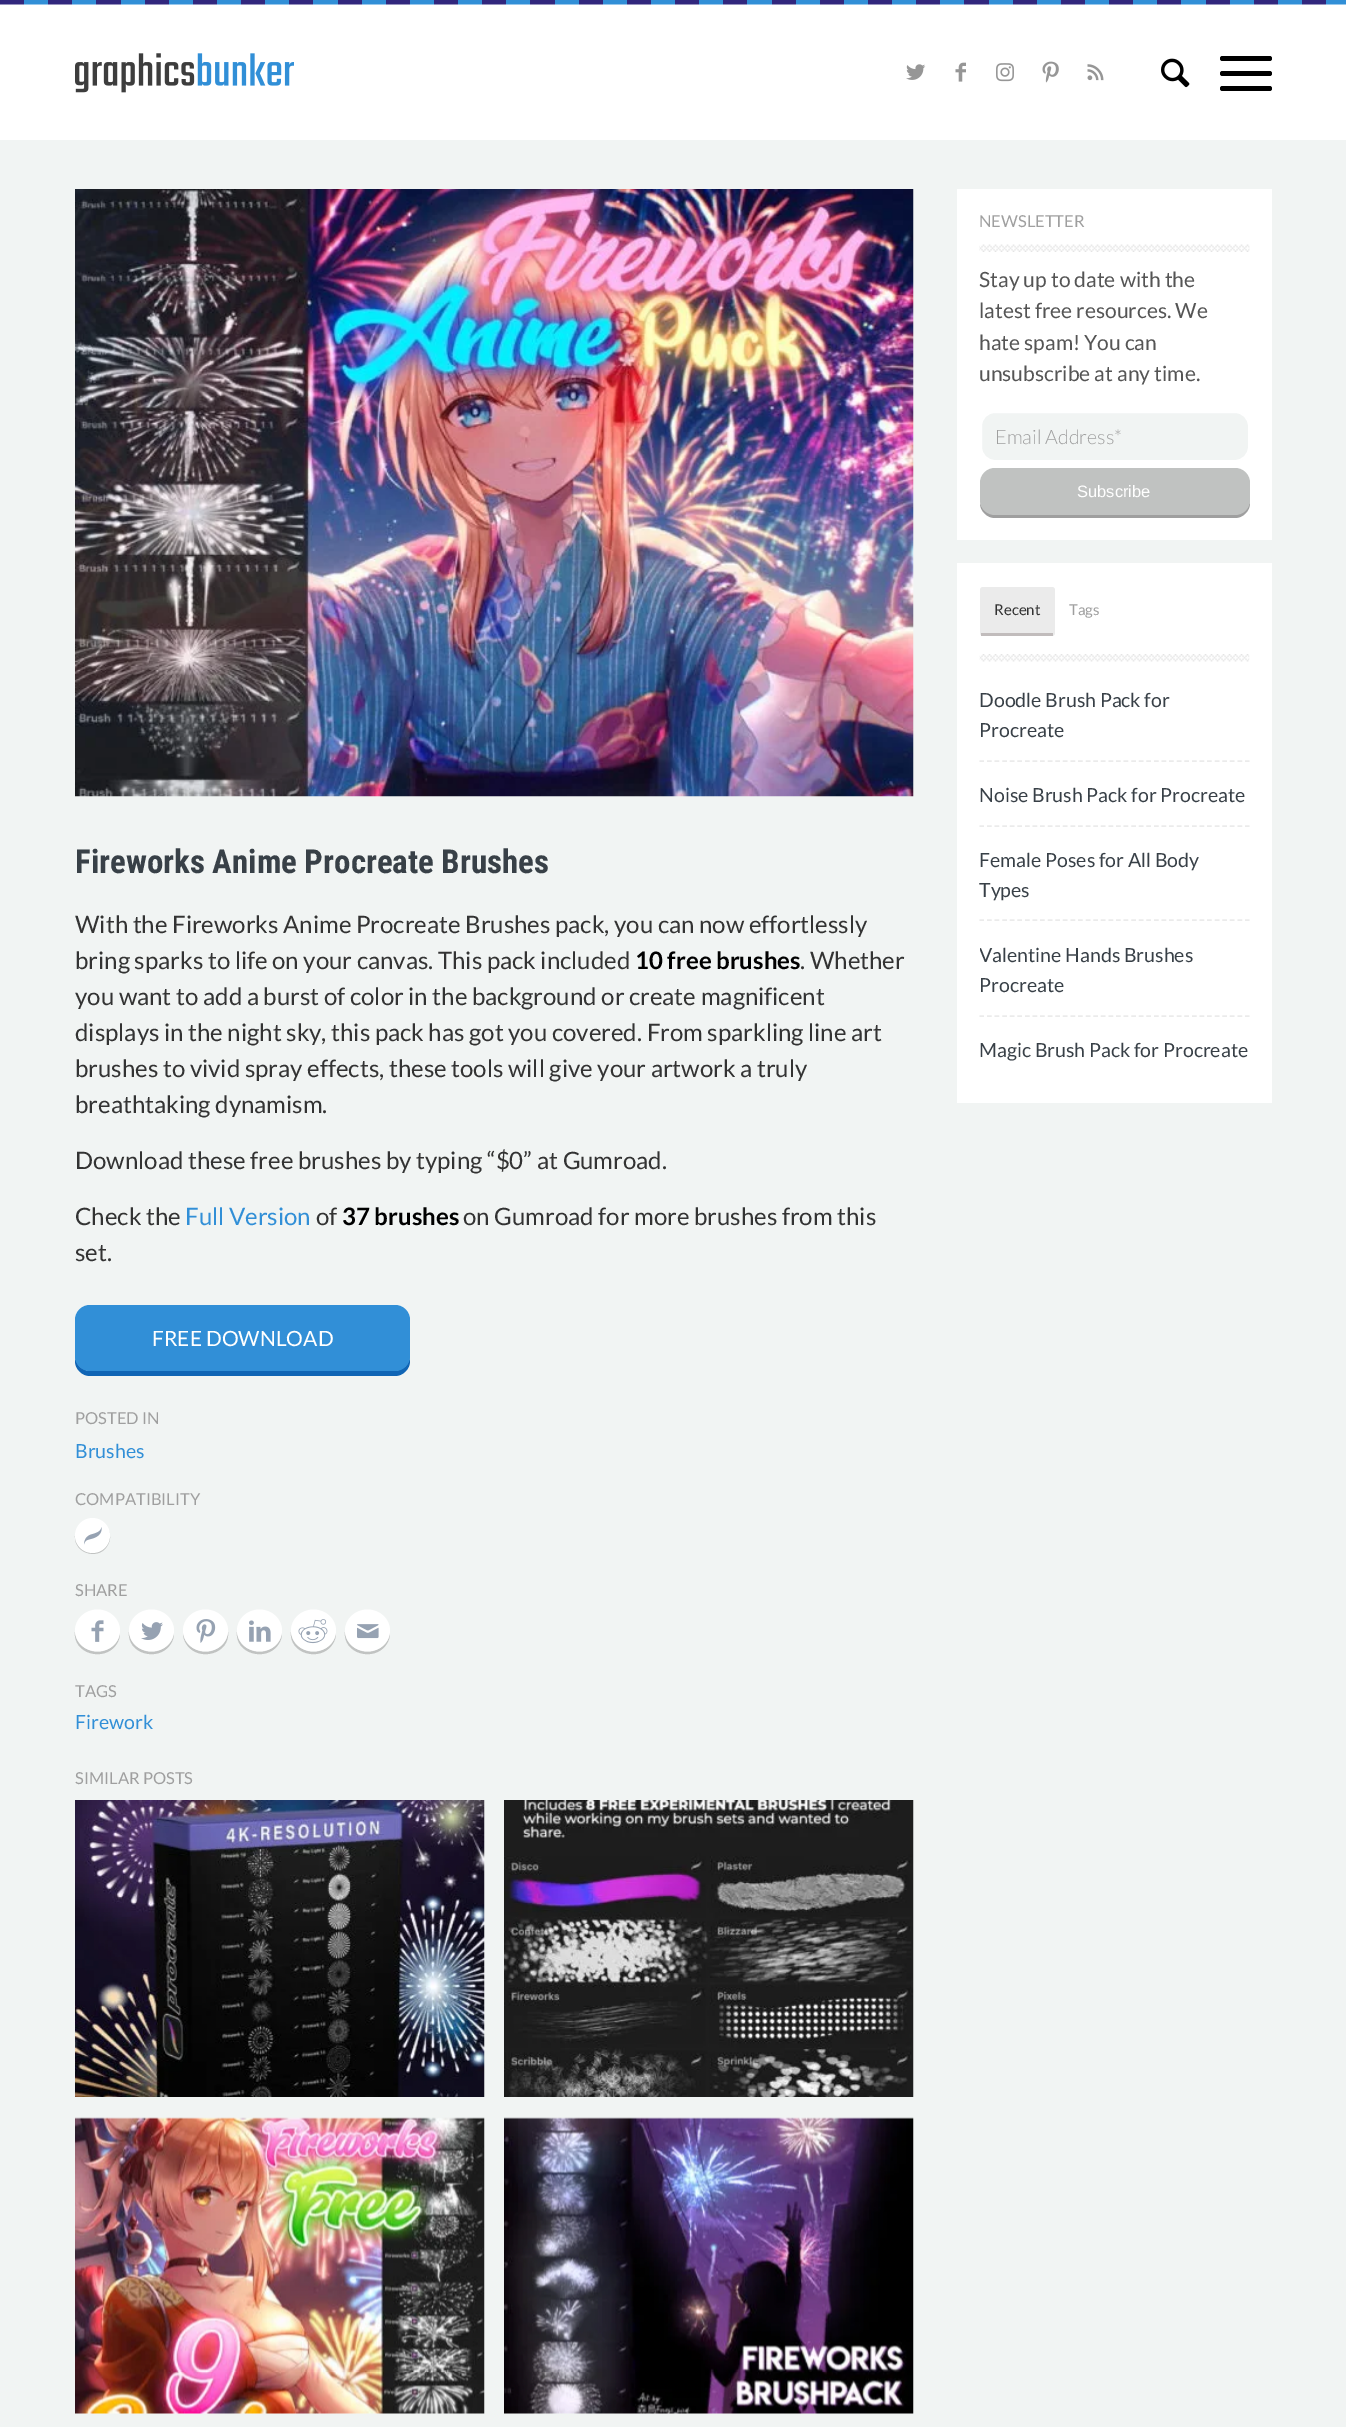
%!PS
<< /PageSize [1346 2427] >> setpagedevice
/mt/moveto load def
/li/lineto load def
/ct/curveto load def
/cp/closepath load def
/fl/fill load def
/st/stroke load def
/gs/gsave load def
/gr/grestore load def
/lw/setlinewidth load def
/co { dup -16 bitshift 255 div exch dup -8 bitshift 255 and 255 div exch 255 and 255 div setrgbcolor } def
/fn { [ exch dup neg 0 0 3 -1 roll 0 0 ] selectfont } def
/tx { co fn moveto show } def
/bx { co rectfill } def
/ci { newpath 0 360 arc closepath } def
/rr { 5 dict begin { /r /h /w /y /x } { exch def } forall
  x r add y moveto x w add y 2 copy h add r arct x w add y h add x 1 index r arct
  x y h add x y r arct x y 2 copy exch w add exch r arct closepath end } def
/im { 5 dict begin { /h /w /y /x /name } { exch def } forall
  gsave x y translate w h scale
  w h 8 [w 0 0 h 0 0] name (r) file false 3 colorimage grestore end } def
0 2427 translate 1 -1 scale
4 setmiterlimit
0 0 1346 2427 16#FFFFFF bx
(media/1.raw) 0 0 1346 5 im
(media/2.raw) 75 53 219 40 im
(media/3.raw) 906 64 20 16 im
(media/4.raw) 955 62 11 20 im
(media/5.raw) 996 63 18 19 im
(media/6.raw) 1042 61 17 22 im
(media/7.raw) 1087 64 17 17 im
(media/8.raw) 1161 58 29 30 im
16#000000 co
1220 71 52 5 2.5 rr fl
1220 56 52 5 2.5 rr fl
1220 86 52 5 2.5 rr fl
0 140 1346 2287 16#F1F4F3 bx
957 189 315 351 16#FFFFFF bx
(media/9.raw) 979 244 271 8 im
16#F1F4F3 co
981 412 268 49 14 rr gs fl gr
16#FFFFFF co
2 lw
st
16#9F9F9F co
980 503 mt 980 511 987 518 995 518 ct 1235 518 li 1243 518 1250 511 1250 503 ct 1250 486 li 1249 482 li 1250 500 li 1250 508 1243 514 1234 514 ct 994 514 li 988 514 982 510 980 503 ct cp fl
16#C0C2C1 co
980 468 270 47 15 rr fl
957 563 315 540 16#FFFFFF bx
(media/10.raw) 979 654 271 8 im
16#EBEBEB co
980 587 75 49 3 rr fl
981 633 72 3 16#C1BCBC bx
16#EBEBEB co
1.5 lw
[4.5 3.09] 0 setdash
979.5 761 mt 1249.5 761 li st
979.5 826 mt 1249.5 826 li st
979.5 920 mt 1249.5 920 li st
979.5 1016 mt 1249.5 1016 li st
(media/11.raw) 75 189 839 608 im
16#1065B5 co
75 1356 mt 75 1361 li 75 1369 82 1376 90 1376 ct 395 1376 li 403 1376 410 1369 410 1361 ct 410 1325 li 410 1321 li 410 1356 li 410 1364 403 1371 394 1371 ct 90 1371 li 82 1371 75 1364 75 1356 ct cp fl
16#318FD7 co
75 1305 335 66 15 rr fl
16#C1C3C2 co
75 1536 mt 74 1555 101.5 1561 108.5 1543.5 ct 110.5 1540 110.5 1535.5 109 1531.5 ct 112.5 1548 92.5 1559.5 80.5 1547.5 ct 77 1544.5 75 1540.5 75 1536 ct cp fl
16#FFFFFF co
92.5 1535.5 17.5 ci fl
(media/12.raw) 84 1527 18 18 im
16#C1C3C2 co
75 1632 mt 73 1654 104 1662 116 1645 ct 119 1641 120 1637 120 1632 ct 118 1658 77 1658 75 1632 ct cp fl
16#FFFFFF co
97.5 1609.5 mt 110 1609.5 120 1619 120 1630.5 ct 120 1642 110 1651.5 97.5 1651.5 ct 85 1651.5 75 1642 75 1630.5 ct 75 1619 85 1609.5 97.5 1609.5 ct cp fl
(media/13.raw) 91 1620 13 22 im
16#C1C3C2 co
129 1632 mt 127 1654 158 1662 170 1645 ct 173 1641 174 1637 174 1632 ct 172 1658 131 1658 129 1632 ct cp fl
16#FFFFFF co
151.5 1609.5 mt 164 1609.5 174 1619 174 1630.5 ct 174 1642 164 1651.5 151.5 1651.5 ct 139 1651.5 129 1642 129 1630.5 ct 129 1619 139 1609.5 151.5 1609.5 ct cp fl
(media/14.raw) 141 1622 22 18 im
16#C1C3C2 co
183 1632 mt 183 1637 184 1641 187 1645 ct 199 1662 230 1654 228 1632 ct 226 1658 185 1658 183 1632 ct cp fl
16#FFFFFF co
205.5 1609.5 mt 218 1609.5 228 1619 228 1630.5 ct 228 1642 218 1651.5 205.5 1651.5 ct 193 1651.5 183 1642 183 1630.5 ct 183 1619 193 1609.5 205.5 1609.5 ct cp fl
(media/15.raw) 196 1619 20 24 im
16#C1C3C2 co
237 1632 mt 235 1654 266 1662 278 1645 ct 281 1641 282 1637 282 1632 ct 280 1658 239 1658 237 1632 ct cp fl
16#FFFFFF co
259.5 1609.5 mt 272 1609.5 282 1619 282 1630.5 ct 282 1642 272 1651.5 259.5 1651.5 ct 247 1651.5 237 1642 237 1630.5 ct 237 1619 247 1609.5 259.5 1609.5 ct cp fl
(media/16.raw) 249 1620 22 22 im
16#C1C3C2 co
291 1632 mt 289 1654 320 1662 332 1645 ct 335 1641 336 1637 336 1632 ct 334 1658 293 1658 291 1632 ct cp fl
16#FFFFFF co
313.5 1609.5 mt 326 1609.5 336 1619 336 1630.5 ct 336 1642 326 1651.5 313.5 1651.5 ct 301 1651.5 291 1642 291 1630.5 ct 291 1619 301 1609.5 313.5 1609.5 ct cp fl
(media/17.raw) 298 1619 30 25 im
16#C1C3C2 co
345 1632 mt 343 1654 374 1662 386 1645 ct 389 1641 390 1637 390 1632 ct 388 1658 347 1658 345 1632 ct cp fl
16#FFFFFF co
367.5 1609.5 mt 380 1609.5 390 1619 390 1630.5 ct 390 1642 380 1651.5 367.5 1651.5 ct 355 1651.5 345 1642 345 1630.5 ct 345 1619 355 1609.5 367.5 1609.5 ct cp fl
(media/18.raw) 357 1624 22 15 im
(media/19.raw) 75 1800 410 297 im
(media/20.raw) 504 1800 410 297 im
(media/21.raw) 75 2117 410 297 im
(media/22.raw) 504 2117 410 297 im
(NEWSLETTER) 979 227 /Lato-Regular 16.5 16#9F9F9F tx
(Stay up to date with the) 979 287 /Lato-Regular 21 16#555555 tx
(latest free resources. We) 979 318 /Lato-Regular 21 16#555555 tx
(hate spam! You can) 979 350 /Lato-Regular 21 16#555555 tx
(unsubscribe at any time.) 979 381 /Lato-Regular 21 16#555555 tx
(Email Address*) 995 444 /Lato-Light 19.75 16#9F9F9F tx
(Subscribe) 1077 497 /LiberationSans-Regular 16.5 16#FFFFFF tx
(Recent) 994 615 /Lato-Regular 15 16#333333 tx
(Tags) 1069 615 /Lato-Regular 15 16#9F9F9F tx
(Doodle Brush Pack for) 979 707 /Lato-Regular 19.5 16#384047 tx
(Procreate) 979 737 /Lato-Regular 19.5 16#384047 tx
(Noise Brush Pack for Procreate) 979 802 /Lato-Regular 19.5 16#384047 tx
(Female Poses for All Body) 979 867 /Lato-Regular 19.5 16#384047 tx
(Types) 979 897 /Lato-Regular 19.5 16#384047 tx
gs
980 666 270 414 3 rr clip newpath
(Valentine Hands Brushes) 979 962 /Lato-Regular 19.5 16#384047 tx
gr
(Procreate) 979 992 /Lato-Regular 19.5 16#384047 tx
(Magic Brush Pack for Procreate) 979 1057 /Lato-Regular 19.5 16#384047 tx
(Fireworks Anime Procreate Brushes) 75 873 /RobotoCondensed-Bold 33 16#384047 tx
(With the Fireworks Anime Procreate Brushes pack, you can now effortlessly) 75 933 /Lato-Regular 24 16#333333 tx
(bring sparks to life on your canvas. This pack included) 75 969 /Lato-Regular 24 16#333333 tx
(10 free brushes) 635 969 /Lato-Bold 24 16#000000 tx
(. Whether) 800 969 /Lato-Regular 24 16#333333 tx
(you want to add a burst of color in the background or create magnificent) 75 1005 /Lato-Regular 24 16#333333 tx
(displays in the night sky, this pack has got you covered. From sparkling line art) 75 1041 /Lato-Regular 24 16#333333 tx
(brushes to vivid spray effects, these tools will give your artwork a truly) 75 1077 /Lato-Regular 24 16#333333 tx
(breathtaking dynamism.) 75 1113 /Lato-Regular 24 16#333333 tx
(Download these free brushes by typing “$0” at Gumroad.) 75 1169 /Lato-Regular 24 16#333333 tx
(Check the) 75 1225 /Lato-Regular 24 16#333333 tx
(Full Version) 185 1225 /Lato-Regular 24 16#318FD7 tx
(of) 316 1225 /Lato-Regular 24 16#333333 tx
(37 brushes) 342 1225 /Lato-Bold 24 16#000000 tx
(on Gumroad for more brushes from this) 463 1225 /Lato-Regular 24 16#333333 tx
(set.) 75 1261 /Lato-Regular 24 16#333333 tx
(FREE DOWNLOAD) 152 1346 /Lato-Regular 21 16#FFFFFF tx
(POSTED IN) 75 1424 /Lato-Regular 16.5 16#9F9F9F tx
(Brushes) 75 1458 /Lato-Regular 19.5 16#318FD7 tx
(COMPATIBILITY) 75 1505 /Lato-Regular 16.5 16#9F9F9F tx
(SHARE) 75 1596 /Lato-Regular 16.5 16#9F9F9F tx
(TAGS) 75 1697 /Lato-Regular 16.5 16#9F9F9F tx
(Firework) 75 1729 /Lato-Regular 19.5 16#318FD7 tx
(SIMILAR POSTS) 75 1784 /Lato-Regular 16.5 16#9F9F9F tx
showpage
